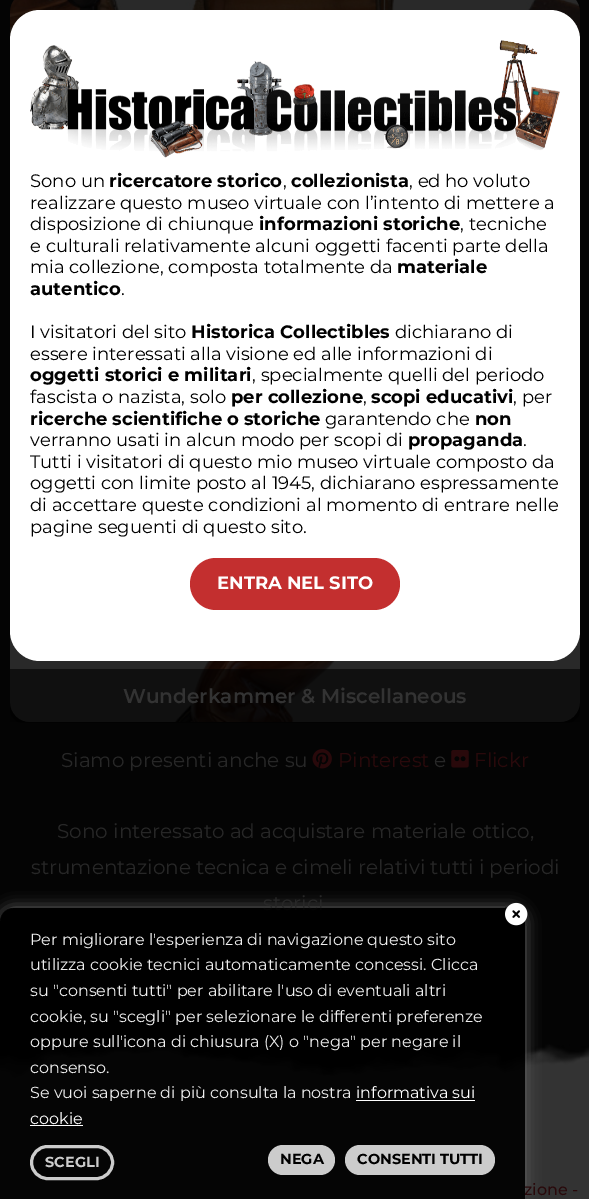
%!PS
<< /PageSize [589 1199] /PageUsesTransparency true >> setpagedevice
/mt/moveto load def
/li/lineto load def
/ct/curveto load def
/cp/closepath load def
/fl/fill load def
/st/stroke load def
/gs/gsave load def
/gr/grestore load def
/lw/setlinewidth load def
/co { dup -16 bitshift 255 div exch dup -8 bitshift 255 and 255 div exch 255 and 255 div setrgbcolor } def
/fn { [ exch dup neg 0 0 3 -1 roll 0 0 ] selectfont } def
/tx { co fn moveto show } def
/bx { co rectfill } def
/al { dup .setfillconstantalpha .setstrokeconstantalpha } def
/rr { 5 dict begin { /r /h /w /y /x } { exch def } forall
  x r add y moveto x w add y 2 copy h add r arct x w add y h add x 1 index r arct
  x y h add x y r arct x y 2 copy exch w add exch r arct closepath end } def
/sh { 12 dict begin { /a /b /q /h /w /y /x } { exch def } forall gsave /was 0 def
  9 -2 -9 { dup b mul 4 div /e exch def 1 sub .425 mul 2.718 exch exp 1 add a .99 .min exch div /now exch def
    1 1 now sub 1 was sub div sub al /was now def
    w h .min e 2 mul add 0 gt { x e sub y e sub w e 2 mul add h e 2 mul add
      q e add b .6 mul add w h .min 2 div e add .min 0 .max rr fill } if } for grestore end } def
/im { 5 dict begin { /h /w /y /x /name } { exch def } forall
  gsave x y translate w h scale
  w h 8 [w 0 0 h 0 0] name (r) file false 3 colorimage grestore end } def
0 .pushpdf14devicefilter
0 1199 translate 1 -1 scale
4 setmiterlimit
0 0 589 1199 16#040404 bx
(media/3.raw) 10 0 570 40 im
(media/4.raw) 10 631 570 91 im
16#FFFFFF co
10 10 570 651 30 rr fl
(media/1.raw) 30 40 530 118 im
16#C32F2F co
190 558 210 52 26 rr fl
0 1081 589 118 16#333333 bx
(media/2.raw) 0 1035 589 46 im
0.6 al
16#000000 co
10 669 mt 580 669 li 580 710 li 580 717 574 723 567 723 ct 23 723 li 16 723 10 717 10 710 ct cp fl
1 al
(media/5.raw) 312 749 20 20 im
(media/6.raw) 451 750 18 18 im
gs
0 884 mt 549 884 li 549 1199 li 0 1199 li cp 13 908 mt 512 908 li 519 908 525 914 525 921 ct 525 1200 li 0 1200 li 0 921 li 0 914 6 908 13 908 ct cp eoclip newpath
16#666666 co
0 908 525 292 13 7.5 1 sh
gr
(Sono un) 30 187 /Montserrat-Thin 18 16#000000 tx
(ricercatore storico) 109 187 /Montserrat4-Thin 18 16#000000 tx
(,) 283 187 /Montserrat-Thin 18 16#000000 tx
(collezionista) 291 187 /Montserrat4-Thin 18 16#000000 tx
(, ed ho voluto) 409 187 /Montserrat-Thin 18 16#000000 tx
(realizzare questo museo virtuale con l’intento di mettere a) 30 209 /Montserrat-Thin 18 16#000000 tx
(disposizione di chiunque) 30 230 /Montserrat-Thin 18 16#000000 tx
(informazioni storiche) 259 230 /Montserrat4-Thin 18 16#000000 tx
(, tecniche) 460 230 /Montserrat-Thin 18 16#000000 tx
(e culturali relativamente alcuni oggetti facenti parte della) 30 252 /Montserrat-Thin 18 16#000000 tx
(mia collezione, composta totalmente da) 30 273 /Montserrat-Thin 18 16#000000 tx
(materiale) 397 273 /Montserrat4-Thin 18 16#000000 tx
(autentico) 30 295 /Montserrat4-Thin 18 16#000000 tx
(.) 121 295 /Montserrat-Thin 18 16#000000 tx
(I visitatori del sito) 30 338 /Montserrat-Thin 18 16#000000 tx
(Historica Collectibles) 191 338 /Montserrat4-Thin 18 16#000000 tx
(dichiarano di) 395 338 /Montserrat-Thin 18 16#000000 tx
(essere interessati alla visione ed alle informazioni di) 30 360 /Montserrat-Thin 18 16#000000 tx
(oggetti storici e militari) 30 381 /Montserrat4-Thin 18 16#000000 tx
(, specialmente quelli del periodo) 252 381 /Montserrat-Thin 18 16#000000 tx
(fascista o nazista, solo) 30 403 /Montserrat-Thin 18 16#000000 tx
(per collezione) 231 403 /Montserrat4-Thin 18 16#000000 tx
(,) 363 403 /Montserrat-Thin 18 16#000000 tx
(scopi educativi) 371 403 /Montserrat4-Thin 18 16#000000 tx
(, per) 513 403 /Montserrat-Thin 18 16#000000 tx
(ricerche scientifiche o storiche) 30 425 /Montserrat4-Thin 18 16#000000 tx
(garantendo che) 325 425 /Montserrat-Thin 18 16#000000 tx
(non) 475 425 /Montserrat4-Thin 18 16#000000 tx
(verranno usati in alcun modo per scopi di) 30 446 /Montserrat-Thin 18 16#000000 tx
(propaganda) 408 446 /Montserrat4-Thin 18 16#000000 tx
(.) 523 446 /Montserrat-Thin 18 16#000000 tx
(Tutti i visitatori di questo mio museo virtuale composto da) 30 468 /Montserrat-Thin 18 16#000000 tx
(oggetti con limite posto al 1945, dichiarano espressamente) 30 489 /Montserrat-Thin 18 16#000000 tx
(di accettare queste condizioni al momento di entrare nelle) 30 511 /Montserrat-Thin 18 16#000000 tx
(pagine seguenti di questo sito.) 30 533 /Montserrat-Thin 18 16#000000 tx
(ENTRA NEL SITO) 217 589 /Montserrat4-Thin 18 16#FFFFFF tx
(zione -) 524 1195 /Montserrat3-Thin 16 16#29090B tx
(Wunderkammer & Miscellaneous) 123 703 /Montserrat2-Thin 20 16#333333 tx
(Siamo presenti anche su) 61 767 /Montserrat-Thin 20 16#272727 tx
(Pinterest) 338 767 /Montserrat-Thin 20 16#29090B tx
(e) 434 767 /Montserrat-Thin 20 16#272727 tx
(Flickr) 474 767 /Montserrat-Thin 20 16#29090B tx
(Sono interessato ad acquistare materiale ottico,) 57 838 /Montserrat-Thin 20 16#272727 tx
(strumentazione tecnica e cimeli relativi tutti i periodi) 31 874 /Montserrat-Thin 20 16#272727 tx
(storici) 263 910 /Montserrat-Thin 20 16#272727 tx
0.9 al
16#000000 co
13 908 mt 512 908 li 519 908 525 914 525 921 ct 525 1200 li 0 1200 li 0 921 li 0 914 6 908 13 908 ct cp fl
1 al
(media/7.raw) 505 902 23 24 im
(Per migliorare l'esperienza di navigazione questo sito) 30 945 /Montserrat-Thin 16 16#EEEEEE tx
(utilizza cookie tecnici automaticamente concessi. Clicca) 30 970 /Montserrat-Thin 16 16#EEEEEE tx
(su "consenti tutti" per abilitare l'uso di eventuali altri) 30 996 /Montserrat-Thin 16 16#EEEEEE tx
(cookie, su "scegli" per selezionare le differenti preferenze) 30 1022 /Montserrat-Thin 16 16#EEEEEE tx
(oppure sull'icona di chiusura \(X\) o "nega" per negare il) 30 1047 /Montserrat-Thin 16 16#EEEEEE tx
(consenso.) 30 1073 /Montserrat-Thin 16 16#EEEEEE tx
(Se vuoi saperne di più consulta la nostra) 30 1098 /Montserrat-Thin 16 16#EEEEEE tx
(informativa sui) 356 1098 /Montserrat-Thin 16 16#FFFFFF tx
356 1100 119 1 16#FFFFFF bx
(cookie) 30 1124 /Montserrat-Thin 16 16#FFFFFF tx
30 1125 53 1 16#FFFFFF bx
16#CCCCCC co
3 lw
31.5 1146.5 81 32 16 rr st
(SCEGLI) 45 1167 /Montserrat4-Thin 14.5 16#CCCCCC tx
268 1145 67 30 15 rr fl
(NEGA) 280 1164 /Montserrat4-Thin 14.5 16#000000 tx
16#CCCCCC co
345 1145 150 30 15 rr fl
(CONSENTI TUTTI) 357 1164 /Montserrat4-Thin 14.5 16#000000 tx
.poppdf14devicefilter showpage
